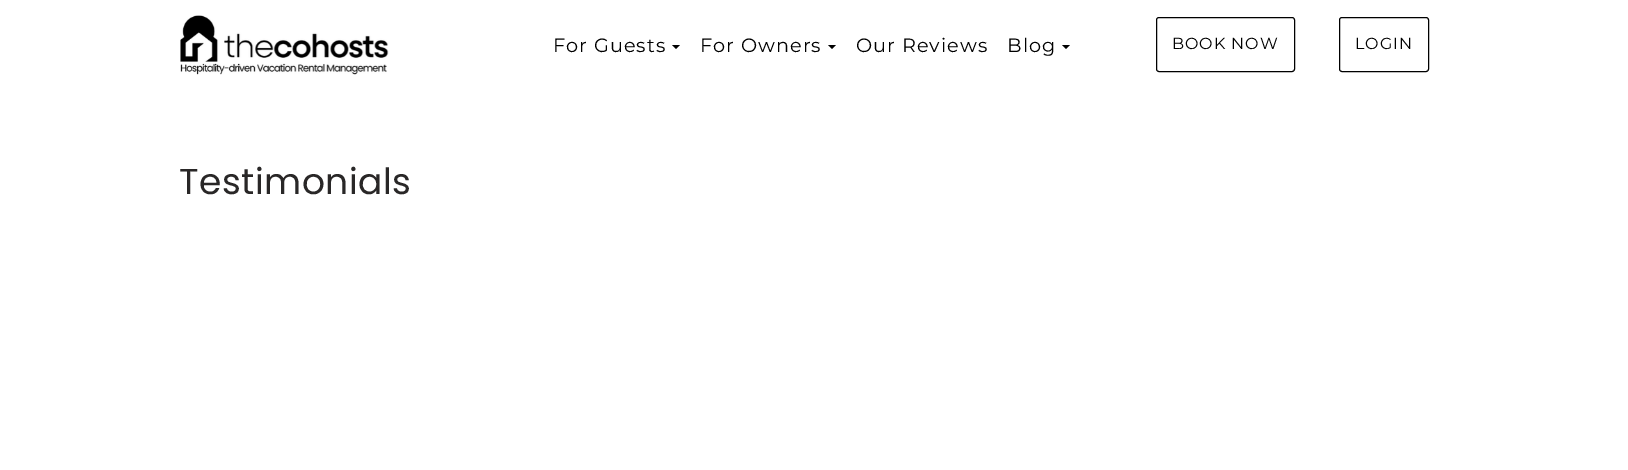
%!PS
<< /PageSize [1628 470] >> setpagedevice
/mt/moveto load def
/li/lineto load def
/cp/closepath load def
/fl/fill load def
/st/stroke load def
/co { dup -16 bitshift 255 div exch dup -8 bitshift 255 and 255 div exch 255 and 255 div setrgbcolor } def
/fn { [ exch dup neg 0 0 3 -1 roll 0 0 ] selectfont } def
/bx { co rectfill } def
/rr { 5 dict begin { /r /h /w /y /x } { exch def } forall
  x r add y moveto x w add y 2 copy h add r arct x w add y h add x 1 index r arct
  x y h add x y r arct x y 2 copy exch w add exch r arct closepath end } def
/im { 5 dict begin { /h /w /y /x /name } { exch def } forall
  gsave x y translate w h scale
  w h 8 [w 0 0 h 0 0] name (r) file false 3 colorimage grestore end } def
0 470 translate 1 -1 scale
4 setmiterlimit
0 0 1628 470 16#FFFFFF bx
(media/1.raw) 180 15 209 60 im
16#000000 co
672 45 mt 680 45 li 676 49 li cp fl
828 45 mt 836 45 li 832 49 li cp fl
1062 45 mt 1070 45 li 1066 49 li cp fl
1156.5 17.5 138 54 2.5 rr st
1339.5 17.5 89 54 2.5 rr st
/Montserrat-Regular 19.25 fn
553 52 mt 1 0 (For Guests) ashow
700 52 mt 1 0 (For Owners) ashow
856 52 mt 1 0 (Our Reviews) ashow
1007 52 mt 1 0 (Blog) ashow
/Montserrat-Regular 16 fn
1172 49 mt 1 0 (BOOK NOW) ashow
1355 49 mt 1 0 (LOGIN) ashow
/Poppins-Regular 36 fn
16#292727 co
179 194 mt .5 0 (Testimonials) ashow
showpage
